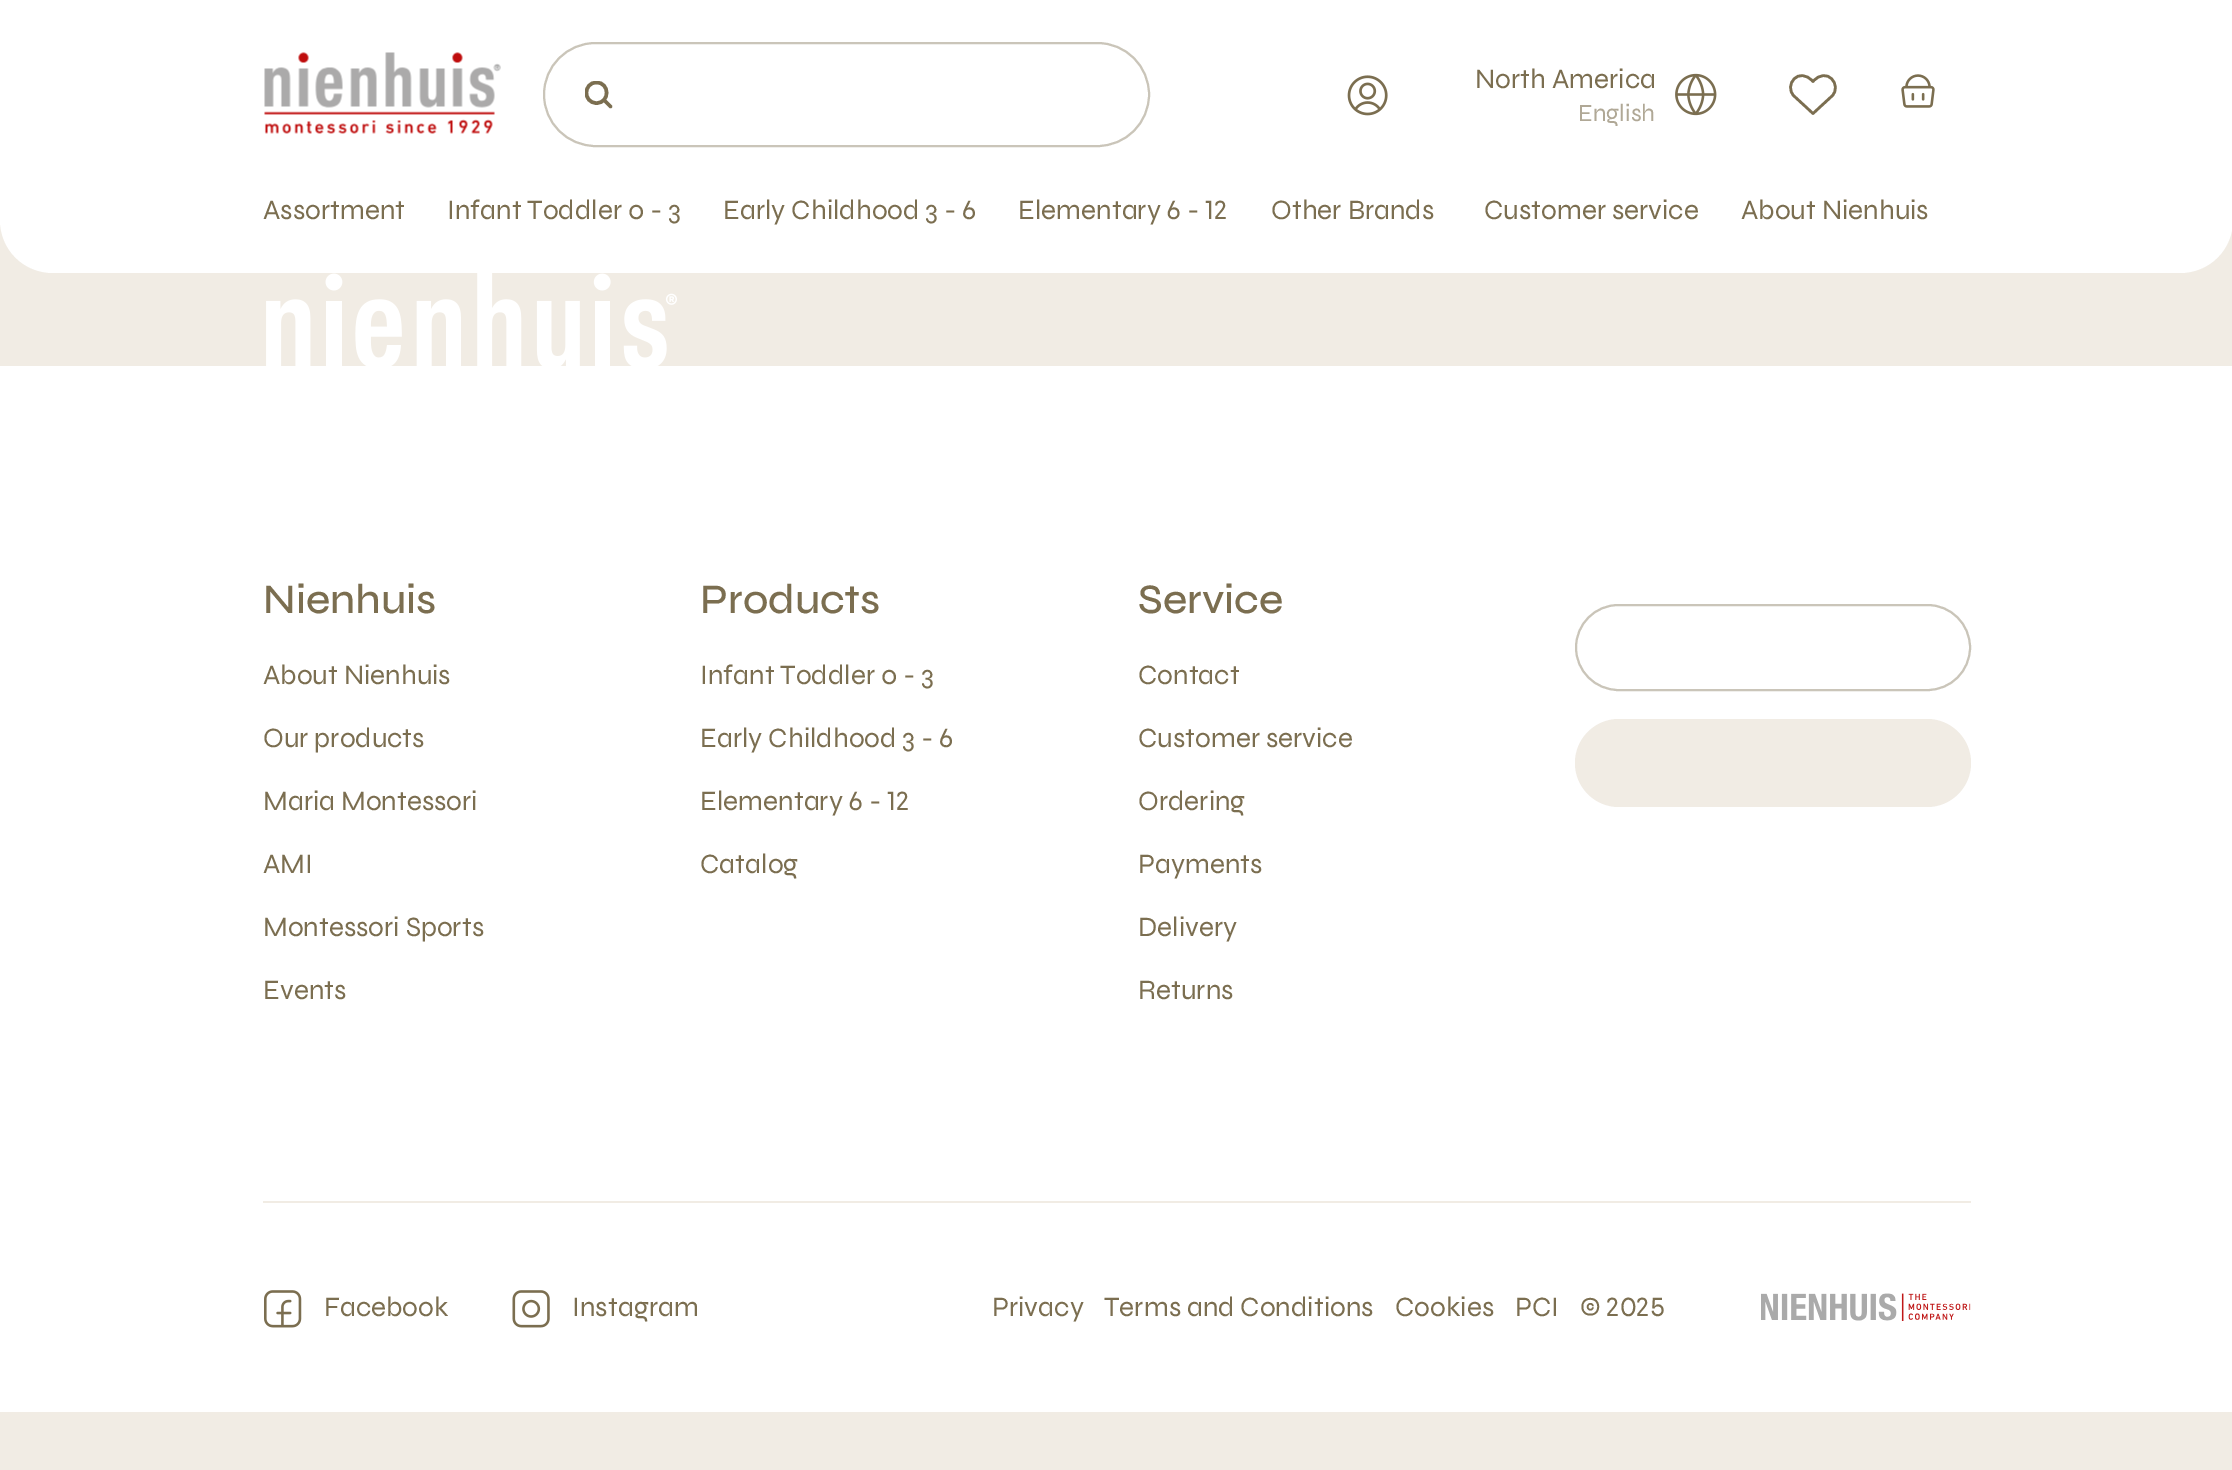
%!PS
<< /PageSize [2232 1470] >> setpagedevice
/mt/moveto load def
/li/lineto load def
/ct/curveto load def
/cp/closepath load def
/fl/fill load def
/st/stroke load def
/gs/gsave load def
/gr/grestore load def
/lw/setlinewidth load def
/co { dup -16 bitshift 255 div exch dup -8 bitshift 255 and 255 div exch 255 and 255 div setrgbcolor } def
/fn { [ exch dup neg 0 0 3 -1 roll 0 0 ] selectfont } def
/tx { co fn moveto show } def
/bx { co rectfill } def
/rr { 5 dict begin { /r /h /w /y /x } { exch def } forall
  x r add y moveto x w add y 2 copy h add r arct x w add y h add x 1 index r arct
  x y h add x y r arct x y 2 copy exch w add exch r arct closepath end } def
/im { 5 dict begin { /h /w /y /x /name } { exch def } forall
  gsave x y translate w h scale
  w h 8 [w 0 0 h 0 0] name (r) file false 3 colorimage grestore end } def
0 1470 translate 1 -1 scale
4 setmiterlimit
0 0 2232 1470 16#F1ECE4 bx
16#FFFFFF co
0 105 mt 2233 105 li 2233 220 li 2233 249.5 2209.5 273 2180 273 ct 53 273 li 23.5 273 0 249.5 0 220 ct cp fl
0 0 mt 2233 0 li 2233 136 li 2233 165.5 2209.5 189 2180 189 ct 53 189 li 23.5 189 0 165.5 0 136 ct cp fl
(media/1.raw) 264 52 237 82 im
16#CAC5B9 co
2 lw
544 43 605 103 51.5 rr st
gs
585 81 28 28 rectclip
16#7B6E50 co
3.5 lw
1 setlinecap
1 setlinejoin
610.5 106.5 mt 604 100 li 596.5 103 mt 610 103 610 82.5 596.5 82.5 ct 583 82.5 583 103 596.5 103 ct cp st
gr
(media/2.raw) 1347 75 41 41 im
(media/3.raw) 1675 73 42 43 im
16#7B6E50 co
2.6 lw
1 setlinecap
1 setlinejoin
1813 113.5 mt 1794 96 li 1783.5 85.5 1798.5 65.5 1813 81.5 ct 1827 65.5 1842.5 85.5 1832 96 ct cp st
(media/4.raw) 1901 74 34 34 im
0 366 2232 1046 16#FFFFFF bx
(media/5.raw) 266 273 411 93 im
263 1201 1708 2 16#F1ECE4 bx
16#CAC5B9 co
2 lw
0 setlinecap
0 setlinejoin
1576 605 394 85 42.5 rr st
16#F1ECE4 co
1575 719 396 88 44 rr fl
(media/6.raw) 264 1290 38 38 im
(media/7.raw) 512 1290 38 38 im
(media/8.raw) 1761 1293 210 28 im
(North America) 1475 88 /Syne-Regular 28 16#7B6E50 tx
(English) 1578 121 /Syne-Regular 24.5 16#B0A896 tx
(Assortment) 263 219 /Syne-Regular 28 16#7B6E50 tx
(Infant Toddler 0 - 3) 447 219 /Syne-Regular 28 16#7B6E50 tx
(Early Childhood 3 - 6) 723 219 /Syne-Regular 28 16#7B6E50 tx
(Elementary 6 - 12) 1018 219 /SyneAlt-Regular 28 16#7B6E50 tx
(Other Brands) 1271 219 /Syne-Regular 28 16#7B6E50 tx
(Customer service) 1484 219 /Syne-Regular 28 16#7B6E50 tx
(About Nienhuis) 1741 219 /Syne-Regular 28 16#7B6E50 tx
(Nienhuis) 263 613 /Syne-Medium 42 16#7B6E50 tx
(About Nienhuis) 263 684 /Syne-Regular 28 16#7B6E50 tx
(Our products) 263 747 /Syne-Regular 28 16#7B6E50 tx
(Maria Montessori) 263 810 /Syne-Regular 28 16#7B6E50 tx
(AMI) 263 873 /Syne-Regular 28 16#7B6E50 tx
(Montessori Sports) 263 936 /Syne-Regular 28 16#7B6E50 tx
(Events) 263 999 /Syne-Regular 28 16#7B6E50 tx
(Products) 700 613 /Syne-Medium 42 16#7B6E50 tx
(Infant Toddler 0 - 3) 700 684 /Syne-Regular 28 16#7B6E50 tx
(Early Childhood 3 - 6) 700 747 /Syne-Regular 28 16#7B6E50 tx
(Elementary 6 - 12) 700 810 /SyneAlt-Regular 28 16#7B6E50 tx
(Catalog) 700 873 /Syne-Regular 28 16#7B6E50 tx
(Service) 1138 613 /Syne-Medium 42 16#7B6E50 tx
(Contact) 1138 684 /Syne-Regular 28 16#7B6E50 tx
(Customer service) 1138 747 /Syne-Regular 28 16#7B6E50 tx
(Ordering) 1138 810 /Syne-Regular 28 16#7B6E50 tx
(Payments) 1138 873 /Syne-Regular 28 16#7B6E50 tx
(Delivery) 1138 936 /Syne-Regular 28 16#7B6E50 tx
(Returns) 1138 999 /Syne-Regular 28 16#7B6E50 tx
(Facebook) 324 1316 /Syne-Regular 28 16#7B6E50 tx
(Instagram) 572 1316 /Syne-Regular 28 16#7B6E50 tx
(Privacy) 992 1316 /Syne-Regular 28 16#7B6E50 tx
(Terms and Conditions) 1104 1316 /Syne-Regular 28 16#7B6E50 tx
(Cookies) 1395 1316 /Syne-Regular 28 16#7B6E50 tx
(PCI) 1515 1316 /Syne-Regular 28 16#7B6E50 tx
(©) 1580 1316 /Syne-Regular 28 16#7B6E50 tx
(2025) 1606 1316 /SyneAlt-Regular 28 16#7B6E50 tx
showpage
